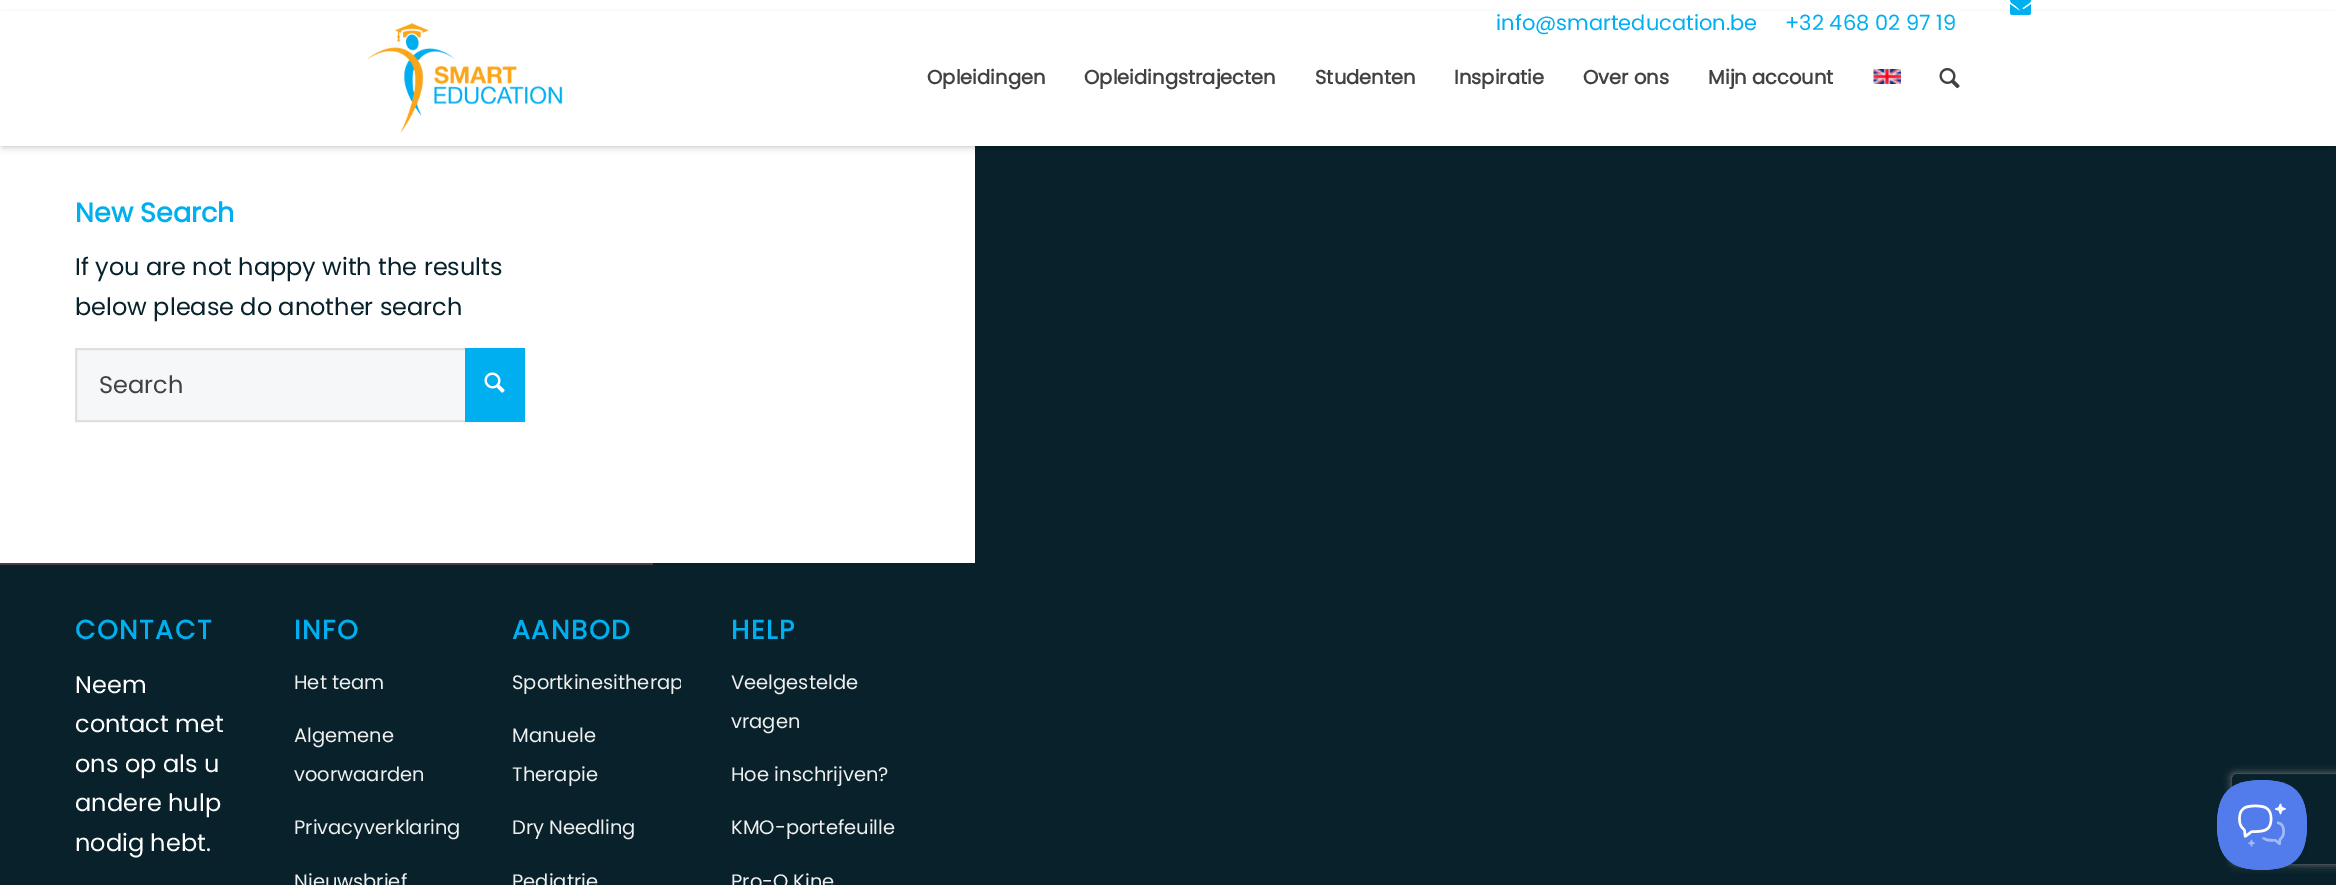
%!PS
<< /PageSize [2336 885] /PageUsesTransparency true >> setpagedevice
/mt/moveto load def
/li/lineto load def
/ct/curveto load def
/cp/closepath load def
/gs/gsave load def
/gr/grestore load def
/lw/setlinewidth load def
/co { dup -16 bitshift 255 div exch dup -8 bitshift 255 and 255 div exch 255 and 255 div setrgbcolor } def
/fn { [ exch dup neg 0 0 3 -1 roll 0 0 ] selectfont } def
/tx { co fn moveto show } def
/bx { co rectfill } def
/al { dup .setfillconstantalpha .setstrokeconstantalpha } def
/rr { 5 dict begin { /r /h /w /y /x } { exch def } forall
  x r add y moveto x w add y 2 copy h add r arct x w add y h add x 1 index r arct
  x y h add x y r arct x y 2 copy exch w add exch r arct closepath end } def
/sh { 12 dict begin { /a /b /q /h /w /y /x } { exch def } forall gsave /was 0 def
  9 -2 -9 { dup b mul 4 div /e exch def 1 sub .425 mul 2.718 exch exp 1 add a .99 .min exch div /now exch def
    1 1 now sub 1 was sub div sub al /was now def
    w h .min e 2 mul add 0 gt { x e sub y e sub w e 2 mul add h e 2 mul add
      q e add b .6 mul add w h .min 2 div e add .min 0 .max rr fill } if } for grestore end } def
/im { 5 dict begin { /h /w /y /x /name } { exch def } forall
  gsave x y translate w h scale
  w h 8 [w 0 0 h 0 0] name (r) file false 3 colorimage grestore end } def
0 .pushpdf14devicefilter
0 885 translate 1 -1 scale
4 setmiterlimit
0 0 2336 885 16#08212A bx
0 146 975 417 16#FFFFFF bx
0 0 2336 11 16#FFFFFF bx
16#000000 co
3 17 2331 129 0 4 .3 sh
0 11 2336 135 16#FFFFFF bx
(media/1.raw) 2010 0 21 15 im
(media/2.raw) 2016 6 11 5 im
(media/3.raw) 367 23 196 110 im
(media/4.raw) 1873 69 28 15 im
(media/5.raw) 1939 68 21 21 im
77 350 388 70 16#F5F7F8 bx
16#E3DDDD co
2 lw
76 349 448 72 rectstroke
465 348 60 74 16#00AFEF bx
(media/6.raw) 484 372 21 21 im
0 563 653 2 16#424242 bx
gs
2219 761 mt 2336 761 li 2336 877 li 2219 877 li cp 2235 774 mt 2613 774 li 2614.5 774 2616 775.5 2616 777 ct 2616 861 li 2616 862.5 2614.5 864 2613 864 ct 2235 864 li 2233.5 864 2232 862.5 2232 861 ct 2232 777 li 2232 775.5 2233.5 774 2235 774 ct cp eoclip newpath
16#808080 co
2232 774 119 90 3 4 1 sh
gr
(media/7.raw) 2217 780 90 90 im
(info@smarteducation.be) 1496 30 /Poppins-Regular 21 16#00AFEF tx
(+32 468 02 97 19) 1785 30 /Poppins-Regular 21 16#00AFEF tx
(Opleidingen) 927 84 /Poppins-Bold 19.5 16#424242 tx
(Opleidingstrajecten) 1084 84 /Poppins-Bold 19.5 16#424242 tx
(Studenten) 1315 84 /Poppins-Bold 19.5 16#424242 tx
(Inspiratie) 1454 84 /Poppins-Bold 19.5 16#424242 tx
(Over ons) 1583 84 /Poppins-Bold 19.5 16#424242 tx
(Mijn account) 1708 84 /Poppins-Bold 19.5 16#424242 tx
(New Search) 75 222 /Poppins-Bold 27 16#00AFEF tx
(If you are not happy with the results) 75 275 /Poppins-Regular 24 16#08212A tx
(below please do another search) 75 315 /Poppins-Regular 24 16#08212A tx
(Search) 99 393 /Poppins-Regular 24 16#424242 tx
/Poppins-Bold 26.5 fn
16#00AFEF co
75 639 mt 1.5 0 (CONTACT) ashow
(Neem) 75 693 /Poppins-Regular 24 16#FFFFFF tx
(contact met) 75 732 /Poppins-Regular 24 16#FFFFFF tx
(ons op als u) 75 772 /Poppins-Regular 24 16#FFFFFF tx
(andere hulp) 75 811 /Poppins-Regular 24 16#FFFFFF tx
(nodig hebt.) 75 851 /Poppins-Regular 24 16#FFFFFF tx
/Poppins-Bold 26.5 fn
16#00AFEF co
294 639 mt 1.5 0 (INFO) ashow
(Het team) 294 689 /Poppins-Regular 19.5 16#EFEFEF tx
(Algemene) 294 742 /Poppins-Regular 19.5 16#EFEFEF tx
(voorwaarden) 294 781 /Poppins-Regular 19.5 16#EFEFEF tx
(Privacyverklaring) 294 834 /Poppins-Regular 19.5 16#EFEFEF tx
(Nieuwsbrief) 294 888 /Poppins-Regular 19.5 16#EFEFEF tx
/Poppins-Bold 26.5 fn
16#00AFEF co
512 639 mt 1.5 0 (AANBOD) ashow
gs
513 594 168 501 rectclip
(Sportkinesitherap) 512 689 /Poppins-Regular 19.5 16#EFEFEF tx
gr
(Manuele) 512 742 /Poppins-Regular 19.5 16#EFEFEF tx
(Therapie) 512 781 /Poppins-Regular 19.5 16#EFEFEF tx
(Dry Needling) 512 834 /Poppins-Regular 19.5 16#EFEFEF tx
(Pediatrie) 512 888 /Poppins-Regular 19.5 16#EFEFEF tx
/Poppins-Bold 26.5 fn
16#00AFEF co
731 639 mt 1.5 0 (HELP) ashow
(Veelgestelde) 731 689 /Poppins-Regular 19.5 16#EFEFEF tx
(vragen) 731 728 /Poppins-Regular 19.5 16#EFEFEF tx
(Hoe inschrijven?) 731 781 /Poppins-Regular 19.5 16#EFEFEF tx
(KMO-portefeuille) 731 834 /Poppins-Regular 19.5 16#EFEFEF tx
(Pro-Q Kine) 731 888 /Poppins-Regular 19.5 16#EFEFEF tx
.poppdf14devicefilter showpage
